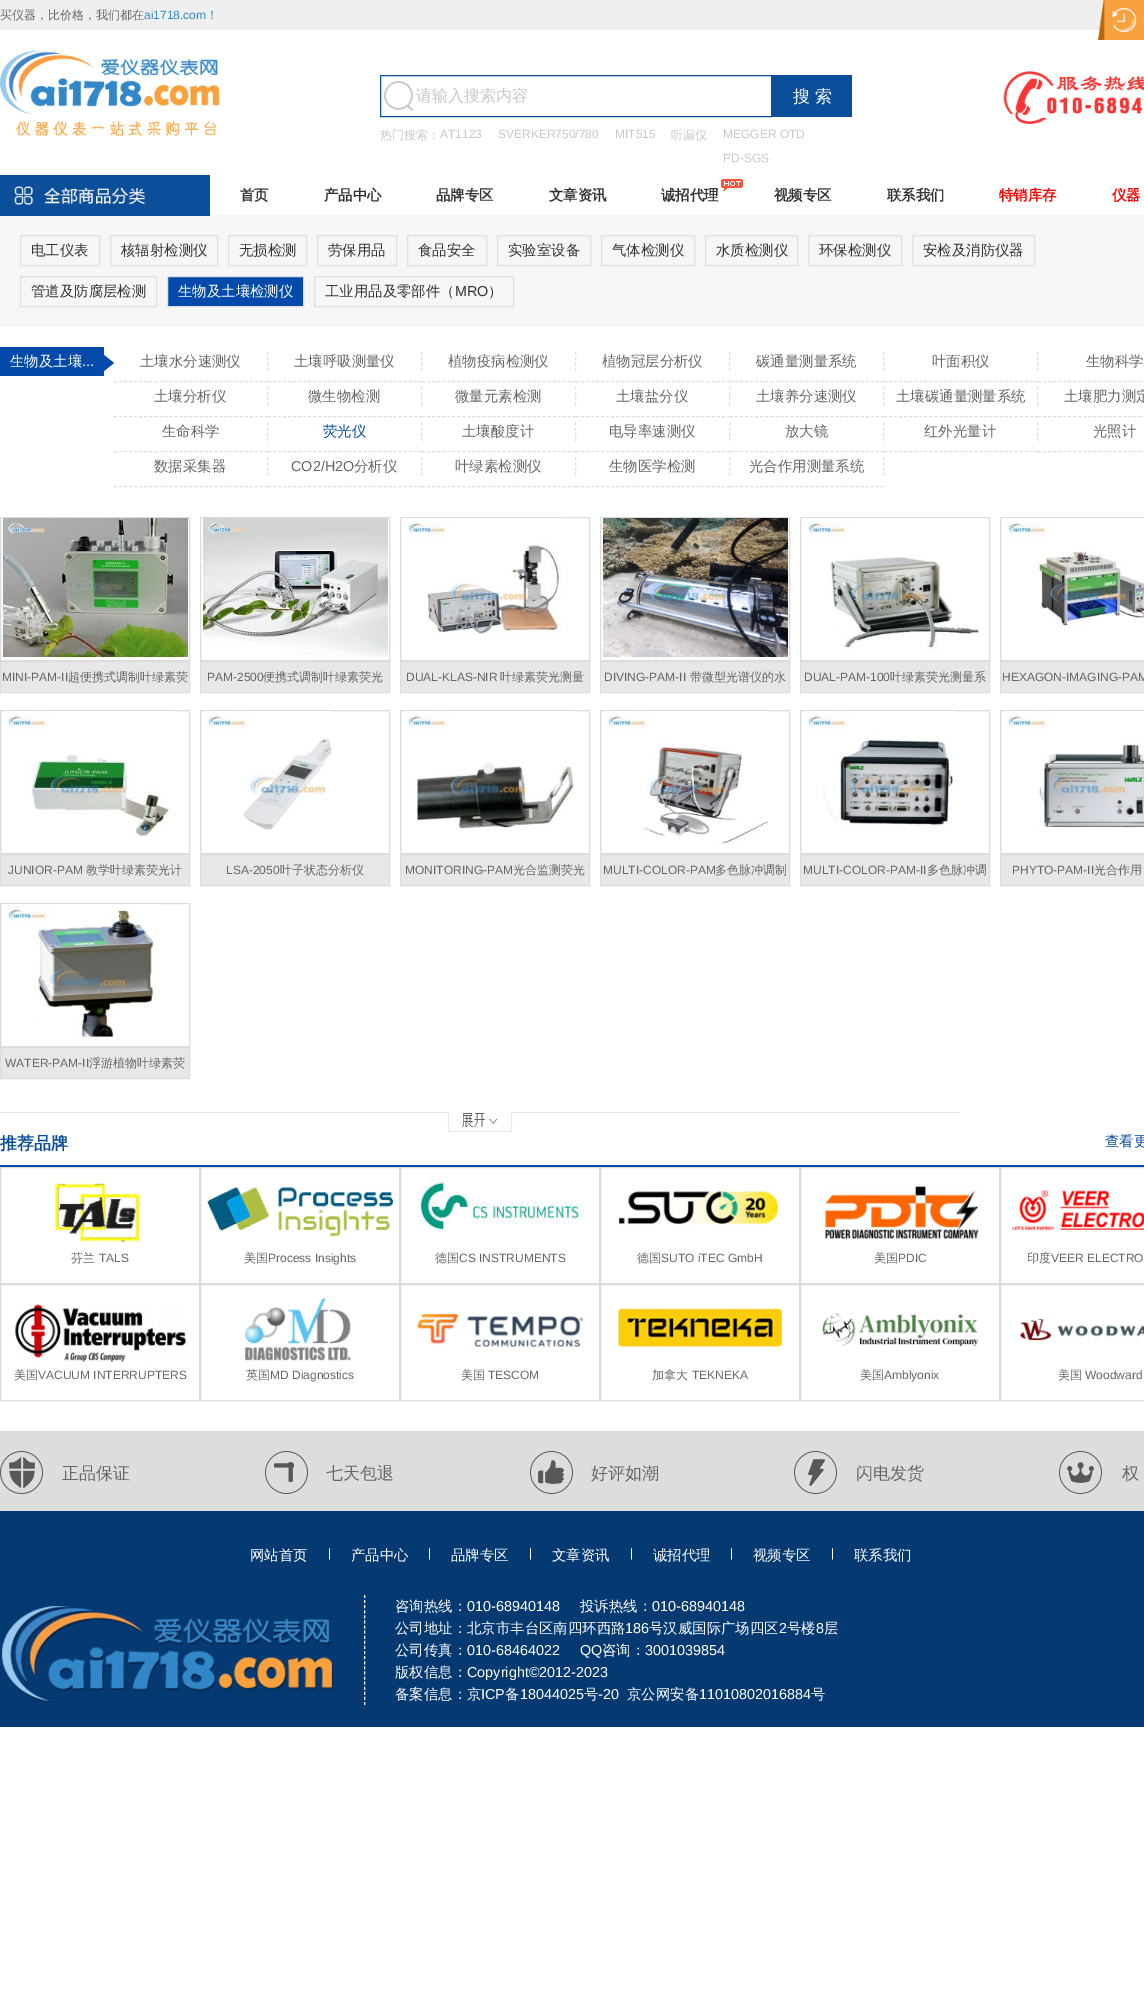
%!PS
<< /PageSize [1144 1994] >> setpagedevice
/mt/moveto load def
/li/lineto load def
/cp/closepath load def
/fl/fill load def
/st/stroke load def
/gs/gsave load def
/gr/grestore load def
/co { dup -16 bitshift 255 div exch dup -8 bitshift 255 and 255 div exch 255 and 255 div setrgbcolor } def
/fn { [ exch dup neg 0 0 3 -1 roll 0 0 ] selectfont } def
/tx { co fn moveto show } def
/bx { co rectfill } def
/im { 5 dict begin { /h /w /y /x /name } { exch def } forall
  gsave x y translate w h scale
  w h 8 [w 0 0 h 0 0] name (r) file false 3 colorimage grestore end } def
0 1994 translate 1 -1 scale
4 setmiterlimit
0 0 1144 1994 16#FFFFFF bx
0 0 1104 30 16#EFEFEF bx
(media/1.raw) 1098 0 46 40 im
(media/2.raw) 0 50 220 86 im
(media/3.raw) 384 81 29 30 im
16#0B4E9A co
380.5 75.5 391 41 rectstroke
772 75 80 42 16#0B4E9A bx
(media/4.raw) 1003 71 141 53 im
0 215 1144 112 16#F6F6F6 bx
(media/5.raw) 0 175 210 41 im
(media/6.raw) 721 179 22 12 im
16#DFDFDF co
20.5 235.5 79 30 rectstroke
110.5 235.5 107 30 rectstroke
228.5 235.5 78 30 rectstroke
317.5 235.5 79 30 rectstroke
407.5 235.5 79 30 rectstroke
497.5 235.5 93 30 rectstroke
601.5 235.5 93 30 rectstroke
705.5 235.5 92 30 rectstroke
808.5 235.5 93 30 rectstroke
912.5 235.5 122 30 rectstroke
20.5 276.5 136 30 rectstroke
16#034AAA co
167.5 276.5 mt 303.5 276.5 li 303.5 306.5 li 167.5 306.5 li cp gs fl gr
16#DFDFDF co
st
314.5 276.5 199 30 rectstroke
0 347 104 29 16#034AAA bx
104 371 mt 104 355 li 114 363 li cp fl
16#DFDFDF co
[3 2.03] 0 setdash
114 381.5 mt 268 381.5 li st
[3 2.33] 0 setdash
267.5 352 mt 267.5 371 li st
[3 2.03] 0 setdash
268 381.5 mt 422 381.5 li st
[3 2.33] 0 setdash
421.5 352 mt 421.5 371 li st
[3 2.03] 0 setdash
422 381.5 mt 576 381.5 li st
[3 2.33] 0 setdash
575.5 352 mt 575.5 371 li st
[3 2.03] 0 setdash
576 381.5 mt 730 381.5 li st
[3 2.33] 0 setdash
729.5 352 mt 729.5 371 li st
[3 2.03] 0 setdash
730 381.5 mt 884 381.5 li st
[3 2.33] 0 setdash
883.5 352 mt 883.5 371 li st
[3 2.03] 0 setdash
884 381.5 mt 1038 381.5 li st
[3 2.33] 0 setdash
1037.5 352 mt 1037.5 371 li st
[3 2.03] 0 setdash
1038 381.5 mt 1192 381.5 li st
114 416.5 mt 268 416.5 li st
[3 2.33] 0 setdash
267.5 387 mt 267.5 406 li st
[3 2.03] 0 setdash
268 416.5 mt 422 416.5 li st
[3 2.33] 0 setdash
421.5 387 mt 421.5 406 li st
[3 2.03] 0 setdash
422 416.5 mt 576 416.5 li st
[3 2.33] 0 setdash
575.5 387 mt 575.5 406 li st
[3 2.03] 0 setdash
576 416.5 mt 730 416.5 li st
[3 2.33] 0 setdash
729.5 387 mt 729.5 406 li st
[3 2.03] 0 setdash
730 416.5 mt 884 416.5 li st
[3 2.33] 0 setdash
883.5 387 mt 883.5 406 li st
[3 2.03] 0 setdash
884 416.5 mt 1038 416.5 li st
[3 2.33] 0 setdash
1037.5 387 mt 1037.5 406 li st
[3 2.03] 0 setdash
1038 416.5 mt 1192 416.5 li st
114 451.5 mt 268 451.5 li st
[3 2.33] 0 setdash
267.5 422 mt 267.5 441 li st
[3 2.03] 0 setdash
268 451.5 mt 422 451.5 li st
[3 2.33] 0 setdash
421.5 422 mt 421.5 441 li st
[3 2.03] 0 setdash
422 451.5 mt 576 451.5 li st
[3 2.33] 0 setdash
575.5 422 mt 575.5 441 li st
[3 2.03] 0 setdash
576 451.5 mt 730 451.5 li st
[3 2.33] 0 setdash
729.5 422 mt 729.5 441 li st
[3 2.03] 0 setdash
730 451.5 mt 884 451.5 li st
[3 2.33] 0 setdash
883.5 422 mt 883.5 441 li st
[3 2.03] 0 setdash
884 451.5 mt 1038 451.5 li st
[3 2.33] 0 setdash
1037.5 422 mt 1037.5 441 li st
[3 2.03] 0 setdash
1038 451.5 mt 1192 451.5 li st
114 486.5 mt 268 486.5 li st
[3 2.33] 0 setdash
267.5 457 mt 267.5 476 li st
[3 2.03] 0 setdash
268 486.5 mt 422 486.5 li st
[3 2.33] 0 setdash
421.5 457 mt 421.5 476 li st
[3 2.03] 0 setdash
422 486.5 mt 576 486.5 li st
[3 2.33] 0 setdash
575.5 457 mt 575.5 476 li st
[3 2.03] 0 setdash
576 486.5 mt 730 486.5 li st
[3 2.33] 0 setdash
729.5 457 mt 729.5 476 li st
[3 2.03] 0 setdash
730 486.5 mt 884 486.5 li st
[3 2.33] 0 setdash
883.5 457 mt 883.5 476 li st
16#DCDCDC co
[] 0 setdash
.5 517.5 189 143 rectstroke
(media/7.raw) 3 518 185 139 im
16#E7E7E7 co
.5 661.5 mt 189.5 661.5 li 189.5 692.5 li .5 692.5 li cp gs fl gr
16#DCDCDC co
st
200.5 517.5 189 143 rectstroke
(media/8.raw) 203 518 185 139 im
16#E7E7E7 co
200.5 661.5 mt 389.5 661.5 li 389.5 692.5 li 200.5 692.5 li cp gs fl gr
16#DCDCDC co
st
400.5 517.5 189 143 rectstroke
(media/9.raw) 403 518 159 122 im
16#E7E7E7 co
400.5 661.5 mt 589.5 661.5 li 589.5 692.5 li 400.5 692.5 li cp gs fl gr
16#DCDCDC co
st
600.5 517.5 189 143 rectstroke
(media/10.raw) 603 518 185 139 im
16#E7E7E7 co
600.5 661.5 mt 789.5 661.5 li 789.5 692.5 li 600.5 692.5 li cp gs fl gr
16#DCDCDC co
st
800.5 517.5 189 143 rectstroke
(media/11.raw) 803 518 176 134 im
16#E7E7E7 co
800.5 661.5 mt 989.5 661.5 li 989.5 692.5 li 800.5 692.5 li cp gs fl gr
16#DCDCDC co
st
1000.5 517.5 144 143 rectstroke
(media/12.raw) 1003 518 141 110 im
16#E7E7E7 co
1000.5 661.5 mt 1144.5 661.5 li 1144.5 692.5 li 1000.5 692.5 li cp gs fl gr
16#DCDCDC co
st
.5 710.5 189 143 rectstroke
(media/13.raw) 3 711 171 127 im
16#E7E7E7 co
.5 854.5 mt 189.5 854.5 li 189.5 885.5 li .5 885.5 li cp gs fl gr
16#DCDCDC co
st
200.5 710.5 189 143 rectstroke
(media/14.raw) 203 711 129 122 im
16#E7E7E7 co
200.5 854.5 mt 389.5 854.5 li 389.5 885.5 li 200.5 885.5 li cp gs fl gr
16#DCDCDC co
st
400.5 710.5 189 143 rectstroke
(media/15.raw) 403 711 171 121 im
16#E7E7E7 co
400.5 854.5 mt 589.5 854.5 li 589.5 885.5 li 400.5 885.5 li cp gs fl gr
16#DCDCDC co
st
600.5 710.5 189 143 rectstroke
(media/16.raw) 603 711 165 134 im
16#E7E7E7 co
600.5 854.5 mt 789.5 854.5 li 789.5 885.5 li 600.5 885.5 li cp gs fl gr
16#DCDCDC co
st
800.5 710.5 189 143 rectstroke
(media/17.raw) 803 711 153 116 im
16#E7E7E7 co
800.5 854.5 mt 989.5 854.5 li 989.5 885.5 li 800.5 885.5 li cp gs fl gr
16#DCDCDC co
st
1000.5 710.5 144 143 rectstroke
(media/18.raw) 1003 711 141 117 im
16#E7E7E7 co
1000.5 854.5 mt 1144.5 854.5 li 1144.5 885.5 li 1000.5 885.5 li cp gs fl gr
16#DCDCDC co
st
.5 903.5 189 143 rectstroke
(media/19.raw) 3 904 158 135 im
16#E7E7E7 co
.5 1047.5 mt 189.5 1047.5 li 189.5 1078.5 li .5 1078.5 li cp gs fl gr
16#DCDCDC co
st
(media/20.raw) 0 1112 960 20 im
0 1165 1144 2 16#034AAA bx
16#DCDCDC co
.5 1167.5 199 116 rectstroke
(media/21.raw) 55 1183 85 60 im
200.5 1167.5 199 116 rectstroke
(media/22.raw) 207 1186 187 51 im
400.5 1167.5 199 116 rectstroke
(media/23.raw) 420 1178 165 54 im
600.5 1167.5 199 116 rectstroke
(media/24.raw) 619 1189 163 38 im
800.5 1167.5 199 116 rectstroke
(media/25.raw) 825 1186 154 53 im
1000.5 1167.5 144 116 rectstroke
(media/26.raw) 1012 1190 132 40 im
.5 1284.5 199 116 rectstroke
(media/27.raw) 15 1304 171 59 im
200.5 1284.5 199 116 rectstroke
(media/28.raw) 245 1297 106 64 im
400.5 1284.5 199 116 rectstroke
(media/29.raw) 417 1314 166 34 im
600.5 1284.5 199 116 rectstroke
(media/30.raw) 618 1308 165 39 im
800.5 1284.5 199 116 rectstroke
(media/31.raw) 822 1313 157 33 im
1000.5 1284.5 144 116 rectstroke
(media/32.raw) 1020 1319 124 22 im
0 1431 1144 80 16#DDDDDD bx
(media/33.raw) 0 1451 43 43 im
(media/34.raw) 265 1451 43 43 im
(media/35.raw) 530 1451 43 43 im
(media/36.raw) 794 1451 43 43 im
(media/37.raw) 1059 1451 43 43 im
0 1511 1144 216 16#053972 bx
(media/38.raw) 2 1606 331 97 im
16#FFFFFF co
[3 2.1] 0 setdash
364.5 1595 mt 364.5 1705 li st
(买仪器，比价格，我们都在) 0 19 /WenQuanYiZenHei-Medium 12 16#666666 tx
(ai1718.com) 144 19 /LiberationSans-Regular 12 16#3287C8 tx
(！) 206 19 /WenQuanYiZenHei-Medium 12 16#3287C8 tx
(请输入搜索内容) 416 101 /WenQuanYiZenHei-Medium 16 16#C8C8C8 tx
(搜 索) 793 102 /WenQuanYiZenHei-Medium 17 16#FFFFFF tx
(热门搜索：) 380 139 /WenQuanYiZenHei-Medium 12 16#C8C8C8 tx
(AT1123) 440 138 /LiberationSans-Regular 12 16#C8C8C8 tx
(SVERKER750/780) 498 138 /LiberationSans-Regular 12 16#C8C8C8 tx
(MIT515) 615 138 /LiberationSans-Regular 12 16#C8C8C8 tx
(听漏仪) 671 139 /WenQuanYiZenHei-Medium 12 16#C8C8C8 tx
(MEGGER OTD) 723 138 /LiberationSans-Regular 12 16#C8C8C8 tx
(PD-SGS) 723 162 /LiberationSans-Regular 12 16#C8C8C8 tx
(首页) 240 200 /WenQuanYiZenHei-Bold 14.4 16#333333 tx
(产品中心) 324 200 /WenQuanYiZenHei-Bold 14.4 16#333333 tx
(品牌专区) 436 200 /WenQuanYiZenHei-Bold 14.4 16#333333 tx
(文章资讯) 549 200 /WenQuanYiZenHei-Bold 14.4 16#333333 tx
(诚招代理) 661 200 /WenQuanYiZenHei-Bold 14.4 16#333333 tx
(视频专区) 774 200 /WenQuanYiZenHei-Bold 14.4 16#333333 tx
(联系我们) 887 200 /WenQuanYiZenHei-Bold 14.4 16#333333 tx
(特销库存) 999 200 /WenQuanYiZenHei-Bold 14.4 16#FF0000 tx
(仪器) 1112 200 /WenQuanYiZenHei-Bold 14.4 16#FF0000 tx
(电工仪表) 31 255 /WenQuanYiZenHei-Medium 14.4 16#333333 tx
(核辐射检测仪) 121 255 /WenQuanYiZenHei-Medium 14.4 16#333333 tx
(无损检测) 239 255 /WenQuanYiZenHei-Medium 14.4 16#333333 tx
(劳保用品) 328 255 /WenQuanYiZenHei-Medium 14.4 16#333333 tx
(食品安全) 418 255 /WenQuanYiZenHei-Medium 14.4 16#333333 tx
(实验室设备) 508 255 /WenQuanYiZenHei-Medium 14.4 16#333333 tx
(气体检测仪) 612 255 /WenQuanYiZenHei-Medium 14.4 16#333333 tx
(水质检测仪) 716 255 /WenQuanYiZenHei-Medium 14.4 16#333333 tx
(环保检测仪) 819 255 /WenQuanYiZenHei-Medium 14.4 16#333333 tx
(安检及消防仪器) 923 255 /WenQuanYiZenHei-Medium 14.4 16#333333 tx
(管道及防腐层检测) 31 296 /WenQuanYiZenHei-Medium 14.4 16#333333 tx
(生物及土壤检测仪) 178 296 /WenQuanYiZenHei-Medium 14.4 16#FFFFFF tx
(工业用品及零部件（) 325 296 /WenQuanYiZenHei-Medium 14.4 16#333333 tx
(MRO) 455 296 /LiberationSans-Regular 14.4 16#333333 tx
(）) 488 296 /WenQuanYiZenHei-Medium 14.4 16#333333 tx
(生物及土壤) 10 366 /WenQuanYiZenHei-Medium 14.4 16#FFFFFF tx
(...) 82 366 /LiberationSans-Regular 14.4 16#FFFFFF tx
(土壤水分速测仪) 140 366 /WenQuanYiZenHei-Medium 14.4 16#666666 tx
(土壤呼吸测量仪) 294 366 /WenQuanYiZenHei-Medium 14.4 16#666666 tx
(植物疫病检测仪) 448 366 /WenQuanYiZenHei-Medium 14.4 16#666666 tx
(植物冠层分析仪) 602 366 /WenQuanYiZenHei-Medium 14.4 16#666666 tx
(碳通量测量系统) 756 366 /WenQuanYiZenHei-Medium 14.4 16#666666 tx
(叶面积仪) 932 366 /WenQuanYiZenHei-Medium 14.4 16#666666 tx
(生物科学) 1086 366 /WenQuanYiZenHei-Medium 14.4 16#666666 tx
(土壤分析仪) 154 401 /WenQuanYiZenHei-Medium 14.4 16#666666 tx
(微生物检测) 308 401 /WenQuanYiZenHei-Medium 14.4 16#666666 tx
(微量元素检测) 455 401 /WenQuanYiZenHei-Medium 14.4 16#666666 tx
(土壤盐分仪) 616 401 /WenQuanYiZenHei-Medium 14.4 16#666666 tx
(土壤养分速测仪) 756 401 /WenQuanYiZenHei-Medium 14.4 16#666666 tx
(土壤碳通量测量系统) 896 401 /WenQuanYiZenHei-Medium 14.4 16#666666 tx
(土壤肥力测定) 1064 401 /WenQuanYiZenHei-Medium 14.4 16#666666 tx
(生命科学) 162 436 /WenQuanYiZenHei-Medium 14.4 16#666666 tx
(荧光仪) 323 436 /WenQuanYiZenHei-Medium 14.4 16#034AAA tx
(土壤酸度计) 462 436 /WenQuanYiZenHei-Medium 14.4 16#666666 tx
(电导率速测仪) 609 436 /WenQuanYiZenHei-Medium 14.4 16#666666 tx
(放大镜) 785 436 /WenQuanYiZenHei-Medium 14.4 16#666666 tx
(红外光量计) 924 436 /WenQuanYiZenHei-Medium 14.4 16#666666 tx
(光照计) 1093 436 /WenQuanYiZenHei-Medium 14.4 16#666666 tx
(数据采集器) 154 471 /WenQuanYiZenHei-Medium 14.4 16#666666 tx
(CO2/H2O) 291 471 /LiberationSans-Regular 14.4 16#666666 tx
(分析仪) 354 471 /WenQuanYiZenHei-Medium 14.4 16#666666 tx
(叶绿素检测仪) 455 471 /WenQuanYiZenHei-Medium 14.4 16#666666 tx
(生物医学检测) 609 471 /WenQuanYiZenHei-Medium 14.4 16#666666 tx
(光合作用测量系统) 749 471 /WenQuanYiZenHei-Medium 14.4 16#666666 tx
(MINI-PAM-II) 2 681 /LiberationSans-Regular 12 16#666666 tx
(超便携式调制叶绿素荧) 68 681 /WenQuanYiZenHei-Medium 12 16#666666 tx
(PAM-2500) 207 681 /LiberationSans-Regular 12 16#666666 tx
(便携式调制叶绿素荧光) 263 681 /WenQuanYiZenHei-Medium 12 16#666666 tx
(DUAL-KLAS-NIR) 406 681 /LiberationSans-Regular 12 16#666666 tx
(叶绿素荧光测量) 500 681 /WenQuanYiZenHei-Medium 12 16#666666 tx
(DIVING-PAM-II) 604 681 /LiberationSans-Regular 12 16#666666 tx
(带微型光谱仪的水) 690 681 /WenQuanYiZenHei-Medium 12 16#666666 tx
(DUAL-PAM-100) 804 681 /LiberationSans-Regular 12 16#666666 tx
(叶绿素荧光测量系) 890 681 /WenQuanYiZenHei-Medium 12 16#666666 tx
(HEXAGON-IMAGING-PAM) 1002 681 /LiberationSans-Regular 12 16#666666 tx
(JUNIOR-PAM) 8 874 /LiberationSans-Regular 12 16#666666 tx
(教学叶绿素荧光计) 86 874 /WenQuanYiZenHei-Medium 12 16#666666 tx
(LSA-2050) 226 874 /LiberationSans-Regular 12 16#666666 tx
(叶子状态分析仪) 280 874 /WenQuanYiZenHei-Medium 12 16#666666 tx
(MONITORING-PAM) 405 874 /LiberationSans-Regular 12 16#666666 tx
(光合监测荧光) 513 874 /WenQuanYiZenHei-Medium 12 16#666666 tx
(MULTI-COLOR-PAM) 603 874 /LiberationSans-Regular 12 16#666666 tx
(多色脉冲调制) 715 874 /WenQuanYiZenHei-Medium 12 16#666666 tx
(MULTI-COLOR-PAM-II) 803 874 /LiberationSans-Regular 12 16#666666 tx
(多色脉冲调) 927 874 /WenQuanYiZenHei-Medium 12 16#666666 tx
(PHYTO-PAM-II) 1012 874 /LiberationSans-Regular 12 16#666666 tx
(光合作用) 1094 874 /WenQuanYiZenHei-Medium 12 16#666666 tx
(WATER-PAM-II) 5 1067 /LiberationSans-Regular 12 16#666666 tx
(浮游植物叶绿素荧) 89 1067 /WenQuanYiZenHei-Medium 12 16#666666 tx
(推荐品牌) 0 1149 /WenQuanYiZenHei-Bold 17 16#0B4E9A tx
(查看更) 1105 1146 /WenQuanYiZenHei-Medium 14.4 16#0B4E9A tx
(芬兰) 71 1262 /WenQuanYiZenHei-Medium 12 16#666666 tx
(TALS) 99 1262 /LiberationSans-Regular 12 16#666666 tx
(美国) 244 1262 /WenQuanYiZenHei-Medium 12 16#666666 tx
(Process Insights) 268 1262 /LiberationSans-Regular 12 16#666666 tx
(德国) 435 1262 /WenQuanYiZenHei-Medium 12 16#666666 tx
(CS INSTRUMENTS) 459 1262 /LiberationSans-Regular 12 16#666666 tx
(德国) 637 1262 /WenQuanYiZenHei-Medium 12 16#666666 tx
(SUTO iTEC GmbH) 661 1262 /LiberationSans-Regular 12 16#666666 tx
(美国) 874 1262 /WenQuanYiZenHei-Medium 12 16#666666 tx
(PDIC) 898 1262 /LiberationSans-Regular 12 16#666666 tx
(印度) 1027 1262 /WenQuanYiZenHei-Medium 12 16#666666 tx
(VEER ELECTRO) 1051 1262 /LiberationSans-Regular 12 16#666666 tx
(美国) 14 1379 /WenQuanYiZenHei-Medium 12 16#666666 tx
(VACUUM INTERRUPTERS) 38 1379 /LiberationSans-Regular 12 16#666666 tx
(英国) 246 1379 /WenQuanYiZenHei-Medium 12 16#666666 tx
(MD Diagnostics) 270 1379 /LiberationSans-Regular 12 16#666666 tx
(美国) 461 1379 /WenQuanYiZenHei-Medium 12 16#666666 tx
(TESCOM) 488 1379 /LiberationSans-Regular 12 16#666666 tx
(加拿大) 652 1379 /WenQuanYiZenHei-Medium 12 16#666666 tx
(TEKNEKA) 692 1379 /LiberationSans-Regular 12 16#666666 tx
(美国) 860 1379 /WenQuanYiZenHei-Medium 12 16#666666 tx
(Amblyonix) 884 1379 /LiberationSans-Regular 12 16#666666 tx
(美国) 1058 1379 /WenQuanYiZenHei-Medium 12 16#666666 tx
(Woodward) 1085 1379 /LiberationSans-Regular 12 16#666666 tx
(正品保证) 62 1479 /WenQuanYiZenHei-Medium 17 16#666666 tx
(七天包退) 326 1479 /WenQuanYiZenHei-Medium 17 16#666666 tx
(好评如潮) 591 1479 /WenQuanYiZenHei-Medium 17 16#666666 tx
(闪电发货) 856 1479 /WenQuanYiZenHei-Medium 17 16#666666 tx
(权) 1122 1479 /WenQuanYiZenHei-Medium 17 16#666666 tx
(网站首页) 250 1560 /WenQuanYiZenHei-Medium 14.4 16#FFFFFF tx
(|) 328 1557 /LiberationSans-Regular 12 16#FFFFFF tx
(产品中心) 351 1560 /WenQuanYiZenHei-Medium 14.4 16#FFFFFF tx
(|) 428 1557 /LiberationSans-Regular 12 16#FFFFFF tx
(品牌专区) 451 1560 /WenQuanYiZenHei-Medium 14.4 16#FFFFFF tx
(|) 529 1557 /LiberationSans-Regular 12 16#FFFFFF tx
(文章资讯) 552 1560 /WenQuanYiZenHei-Medium 14.4 16#FFFFFF tx
(|) 630 1557 /LiberationSans-Regular 12 16#FFFFFF tx
(诚招代理) 653 1560 /WenQuanYiZenHei-Medium 14.4 16#FFFFFF tx
(|) 730 1557 /LiberationSans-Regular 12 16#FFFFFF tx
(视频专区) 753 1560 /WenQuanYiZenHei-Medium 14.4 16#FFFFFF tx
(|) 831 1557 /LiberationSans-Regular 12 16#FFFFFF tx
(联系我们) 854 1560 /WenQuanYiZenHei-Medium 14.4 16#FFFFFF tx
(咨询热线：) 395 1611 /WenQuanYiZenHei-Medium 14.4 16#FFFFFF tx
(010-68940148) 467 1611 /LiberationSans-Regular 14.4 16#FFFFFF tx
(投诉热线：) 580 1611 /WenQuanYiZenHei-Medium 14.4 16#FFFFFF tx
(010-68940148) 652 1611 /LiberationSans-Regular 14.4 16#FFFFFF tx
(公司地址：北京市丰台区南四环西路) 395 1633 /WenQuanYiZenHei-Medium 14.4 16#FFFFFF tx
(186) 625 1633 /LiberationSans-Regular 14.4 16#FFFFFF tx
(号汉威国际广场四区) 649 1633 /WenQuanYiZenHei-Medium 14.4 16#FFFFFF tx
(2) 779 1633 /LiberationSans-Regular 14.4 16#FFFFFF tx
(号楼) 787 1633 /WenQuanYiZenHei-Medium 14.4 16#FFFFFF tx
(8) 816 1633 /LiberationSans-Regular 14.4 16#FFFFFF tx
(层) 824 1633 /WenQuanYiZenHei-Medium 14.4 16#FFFFFF tx
(公司传真：) 395 1655 /WenQuanYiZenHei-Medium 14.4 16#FFFFFF tx
(010-68464022     QQ) 467 1655 /LiberationSans-Regular 14.4 16#FFFFFF tx
(咨询：) 602 1655 /WenQuanYiZenHei-Medium 14.4 16#FFFFFF tx
(3001039854) 645 1655 /LiberationSans-Regular 14.4 16#FFFFFF tx
(版权信息：) 395 1677 /WenQuanYiZenHei-Medium 14.4 16#FFFFFF tx
(Copyright©2012-2023) 467 1677 /LiberationSans-Regular 14.4 16#FFFFFF tx
(备案信息：京) 395 1699 /WenQuanYiZenHei-Medium 14.4 16#FFFFFF tx
(ICP) 481 1699 /LiberationSans-Regular 14.4 16#FFFFFF tx
(备) 505 1699 /WenQuanYiZenHei-Medium 14.4 16#FFFFFF tx
(18044025) 520 1699 /LiberationSans-Regular 14.4 16#FFFFFF tx
(号) 584 1699 /WenQuanYiZenHei-Medium 14.4 16#FFFFFF tx
(-20) 598 1699 /LiberationSans-Regular 14.4 16#FFFFFF tx
(京公网安备) 627 1699 /WenQuanYiZenHei-Medium 14.4 16#FFFFFF tx
(11010802016884) 699 1699 /LiberationSans-Regular 14.4 16#FFFFFF tx
(号) 811 1699 /WenQuanYiZenHei-Medium 14.4 16#FFFFFF tx
showpage
